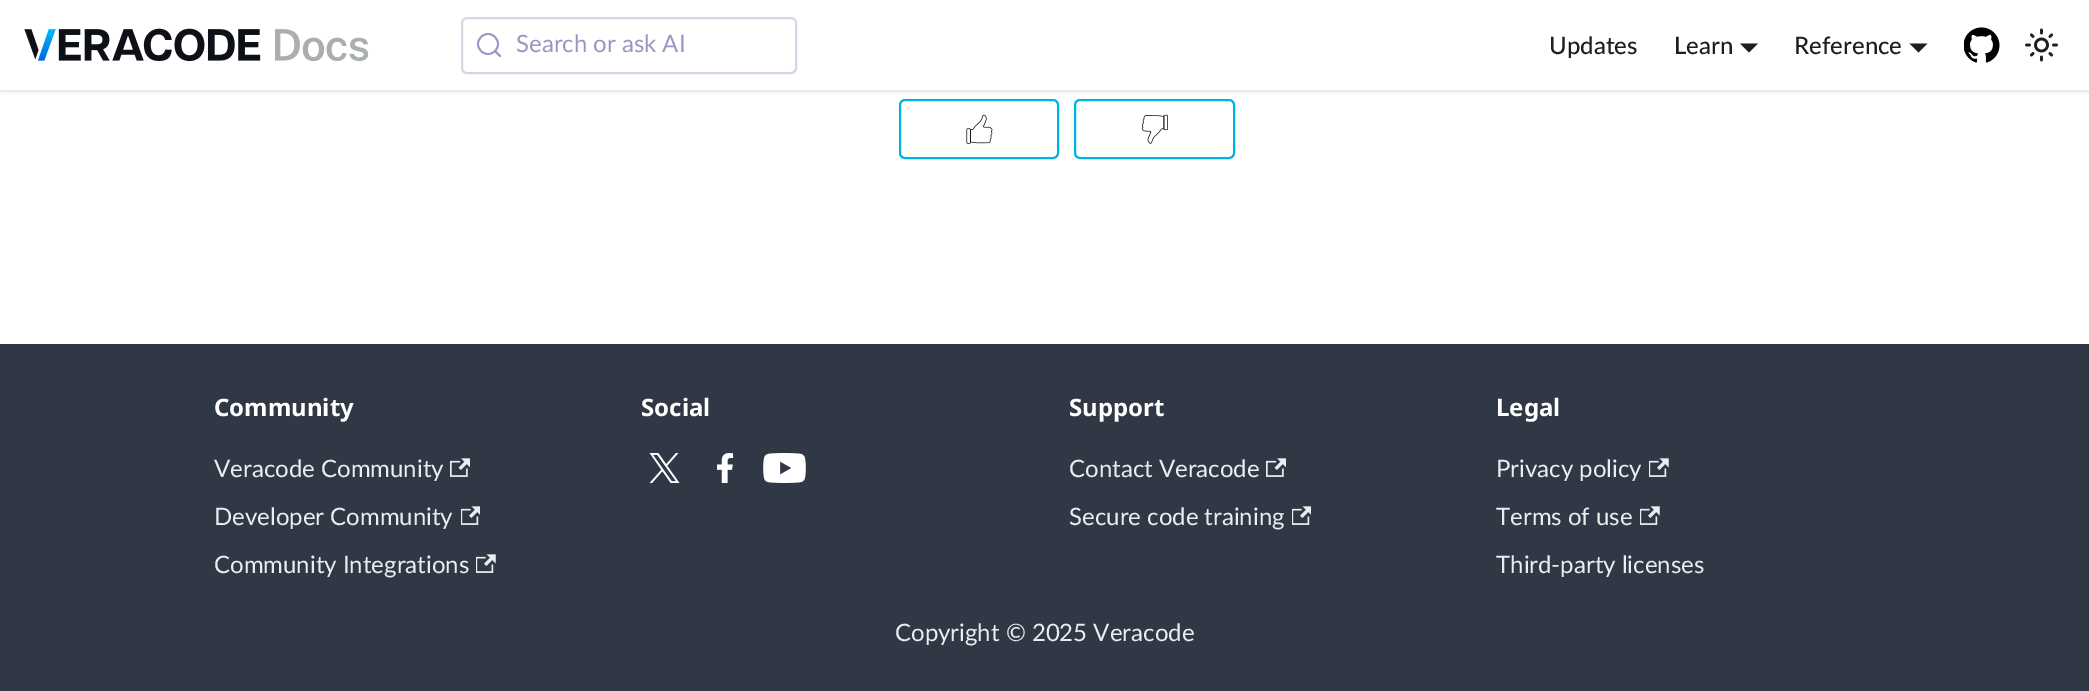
%!PS
<< /PageSize [2089 691] /PageUsesTransparency true >> setpagedevice
/mt/moveto load def
/li/lineto load def
/cp/closepath load def
/fl/fill load def
/st/stroke load def
/lw/setlinewidth load def
/co { dup -16 bitshift 255 div exch dup -8 bitshift 255 and 255 div exch 255 and 255 div setrgbcolor } def
/fn { [ exch dup neg 0 0 3 -1 roll 0 0 ] selectfont } def
/tx { co fn moveto show } def
/bx { co rectfill } def
/al { dup .setfillconstantalpha .setstrokeconstantalpha } def
/ci { newpath 0 360 arc closepath } def
/rr { 5 dict begin { /r /h /w /y /x } { exch def } forall
  x r add y moveto x w add y 2 copy h add r arct x w add y h add x 1 index r arct
  x y h add x y r arct x y 2 copy exch w add exch r arct closepath end } def
/sh { 12 dict begin { /a /b /q /h /w /y /x } { exch def } forall gsave /was 0 def
  9 -2 -9 { dup b mul 4 div /e exch def 1 sub .425 mul 2.718 exch exp 1 add a .99 .min exch div /now exch def
    1 1 now sub 1 was sub div sub al /was now def
    w h .min e 2 mul add 0 gt { x e sub y e sub w e 2 mul add h e 2 mul add
      q e add b .6 mul add w h .min 2 div e add .min 0 .max rr fill } if } for grestore end } def
/im { 5 dict begin { /h /w /y /x /name } { exch def } forall
  gsave x y translate w h scale
  w h 8 [w 0 0 h 0 0] name (r) file false 3 colorimage grestore end } def
0 .pushpdf14devicefilter
0 691 translate 1 -1 scale
4 setmiterlimit
0 0 2089 691 16#FFFFFF bx
16#000000 co
0 2 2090 90 0 1.5 .1 sh
0 0 2089 90 16#FFFFFF bx
(media/1.raw) 24 28 345 34 im
16#D6D6E7 co
2 lw
462 18 334 55 5 rr st
16#9698C3 co
1.8 lw
488 44 10 ci st
2 lw
1 setlinecap
1 setlinejoin
500 56 mt 495 51 li st
16#1C1E21 co
1740 43.5 mt 1758 43.5 li 1749 52.5 li cp fl
1909.5 43.5 mt 1927.5 43.5 li 1918.5 52.5 li cp fl
(media/2.raw) 1964 27 36 36 im
(media/3.raw) 2025 28 33 34 im
16#00B3E6 co
0 setlinecap
0 setlinejoin
900 100 158 58 5 rr st
1075 100 159 58 5 rr st
(media/4.raw) 966 114 27 30 im
(media/5.raw) 1141 114 27 30 im
0 344 2089 347 16#303846 bx
(media/6.raw) 450 458 20 19 im
(media/7.raw) 461 506 19 19 im
(media/8.raw) 476 554 20 19 im
(media/9.raw) 649 453 31 30 im
(media/10.raw) 717 453 17 30 im
(media/11.raw) 763 453 43 30 im
(media/6.raw) 1266 458 20 19 im
(media/7.raw) 1292 506 19 19 im
(media/8.raw) 1649 458 20 19 im
(media/8.raw) 1640 506 20 19 im
(Search or ask AI) 516 52 /Lato-Regular 24 16#9698C3 tx
(Updates) 1549 54 /Lato-Medium 24 16#1C1E21 tx
(Learn) 1674 54 /Lato-Medium 24 16#1C1E21 tx
(Reference) 1794 54 /Lato-Medium 24 16#1C1E21 tx
(Community) 214 416 /NotoSans-Bold 24 16#FFFFFF tx
(Veracode Community) 214 477 /Lato-Regular 24 16#EBEDF0 tx
(Developer Community) 214 525 /Lato-Regular 24 16#EBEDF0 tx
(Community Integrations) 214 573 /Lato-Regular 24 16#EBEDF0 tx
(Social) 641 416 /NotoSans-Bold 24 16#FFFFFF tx
(Support) 1069 416 /NotoSans-Bold 24 16#FFFFFF tx
(Contact Veracode) 1069 477 /Lato-Regular 24 16#EBEDF0 tx
(Secure code training) 1069 525 /Lato-Regular 24 16#EBEDF0 tx
(Legal) 1496 416 /NotoSans-Bold 24 16#FFFFFF tx
(Privacy policy) 1496 477 /Lato-Regular 24 16#EBEDF0 tx
(Terms of use) 1496 525 /Lato-Regular 24 16#EBEDF0 tx
(Third-party licenses) 1496 573 /Lato-Regular 24 16#EBEDF0 tx
(Copyright © 2025 Veracode) 895 641 /Lato-Regular 24 16#EBEDF0 tx
.poppdf14devicefilter showpage
